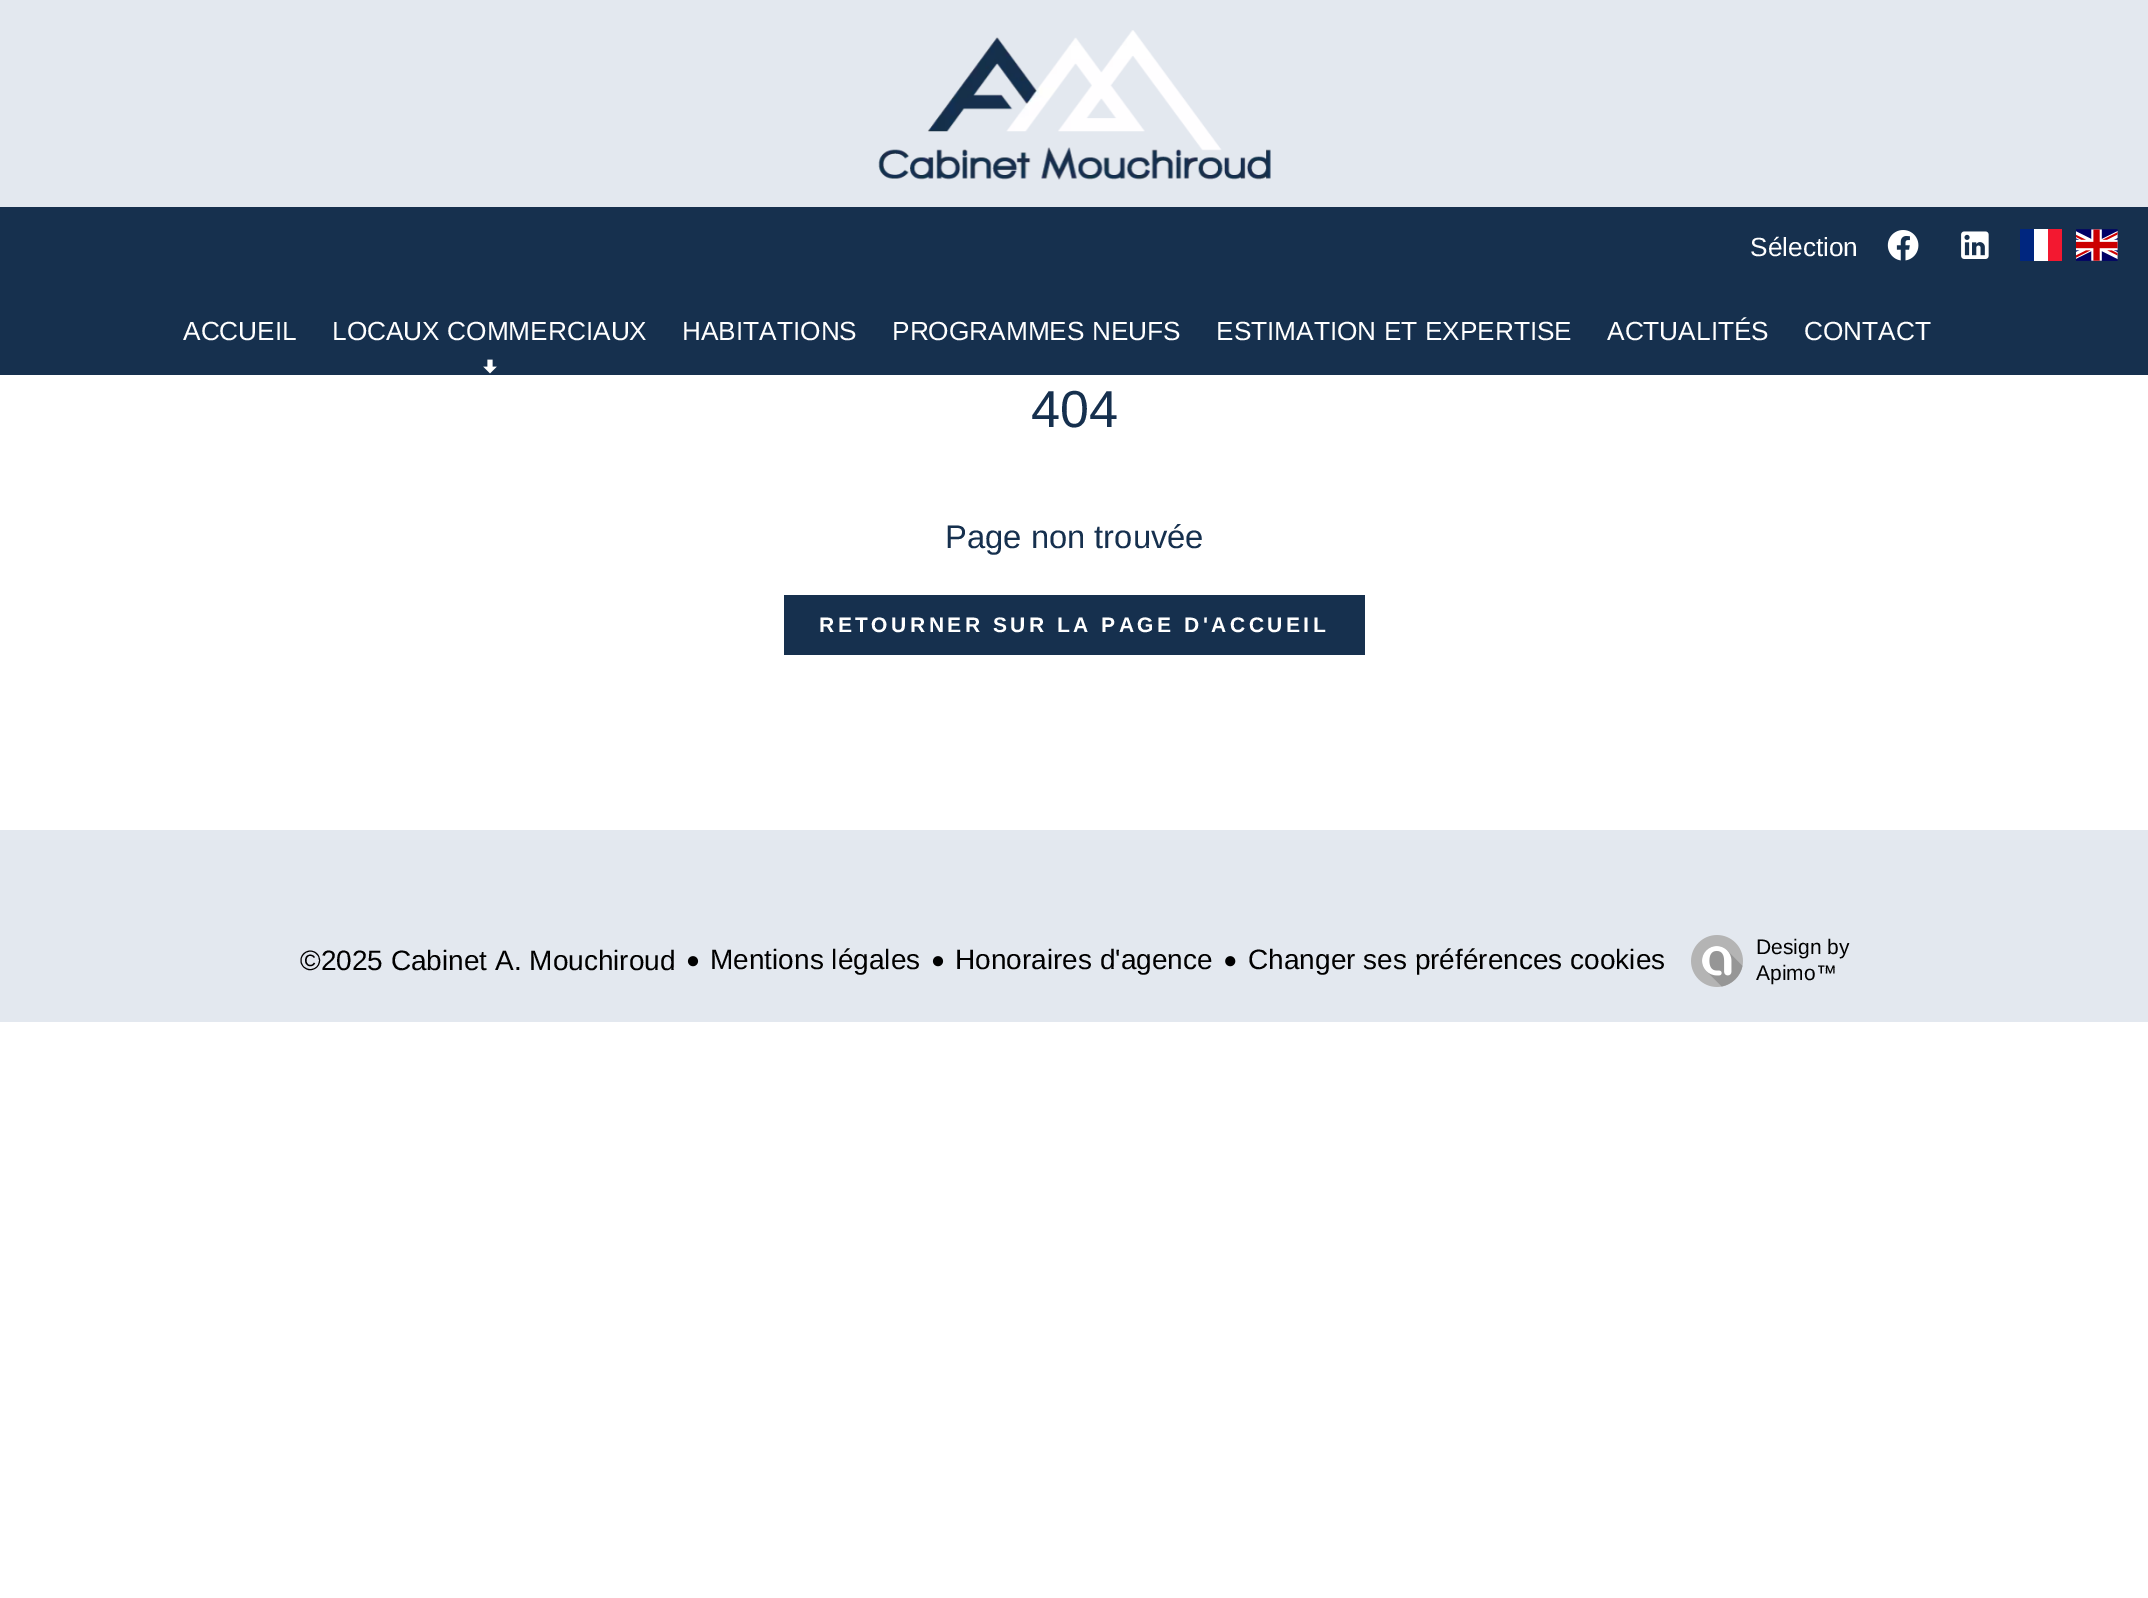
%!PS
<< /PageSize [2148 1598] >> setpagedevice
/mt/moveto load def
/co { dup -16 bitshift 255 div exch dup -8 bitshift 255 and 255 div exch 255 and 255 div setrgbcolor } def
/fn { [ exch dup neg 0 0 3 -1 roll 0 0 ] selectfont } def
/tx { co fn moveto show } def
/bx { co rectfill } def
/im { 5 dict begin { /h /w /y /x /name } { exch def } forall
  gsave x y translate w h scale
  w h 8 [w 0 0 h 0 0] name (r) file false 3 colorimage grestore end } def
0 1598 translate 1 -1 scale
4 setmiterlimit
0 0 2148 1598 16#FFFFFF bx
0 0 2148 207 16#E3E8EF bx
(media/1.raw) 878 30 393 150 im
0 207 2148 168 16#16304E bx
(media/2.raw) 1887 230 32 31 im
(media/3.raw) 1961 231 28 28 im
2034 229 14 32 16#FFFFFF bx
2020 229 14 32 16#00267F bx
2048 229 14 32 16#F31830 bx
(media/4.raw) 2076 229 42 32 im
(media/5.raw) 483 359 14 15 im
784 595 581 60 16#16304E bx
0 830 2148 192 16#E3E8EF bx
(media/6.raw) 687 956 12 11 im
(media/6.raw) 932 956 12 11 im
(media/7.raw) 1225 956 11 11 im
(media/8.raw) 1691 935 52 52 im
(Sélection) 1750 256 /LiberationSans-Regular 26.25 16#FFFFFF tx
(ACCUEIL) 183 340 /LiberationSans-Regular 26.25 16#FFFFFF tx
(LOCAUX COMMERCIAUX) 332 340 /LiberationSans-Regular 26.25 16#FFFFFF tx
(HABITATIONS) 682 340 /LiberationSans-Regular 26.25 16#FFFFFF tx
(PROGRAMMES NEUFS) 892 340 /LiberationSans-Regular 26.25 16#FFFFFF tx
(ESTIMATION ET EXPERTISE) 1216 340 /LiberationSans-Regular 26.25 16#FFFFFF tx
(ACTUALITÉS) 1607 340 /LiberationSans-Regular 26.25 16#FFFFFF tx
(CONTACT) 1804 340 /LiberationSans-Regular 26.25 16#FFFFFF tx
(404) 1031 427 /LiberationSans-Regular 52 16#16304E tx
(Page non trouvée) 945 548 /LiberationSans-Regular 32.75 16#16304E tx
/LiberationSans-Bold 21 fn
16#FFFFFF co
819 632 mt 3.5 0 (RETOURNER SUR LA PAGE D'ACCUEIL) ashow
(©2025 Cabinet A. Mouchiroud) 300 970 /LiberationSans-Regular 28 16#000000 tx
(Mentions légales) 710 969 /LiberationSans-Regular 28 16#000000 tx
(Honoraires d'agence) 955 969 /LiberationSans-Regular 28 16#000000 tx
(Changer ses préférences cookies) 1248 969 /LiberationSans-Regular 28 16#000000 tx
(Design by) 1756 954 /LiberationSans-Regular 21 16#000000 tx
(Apimo™) 1756 980 /LiberationSans-Regular 21 16#000000 tx
showpage
